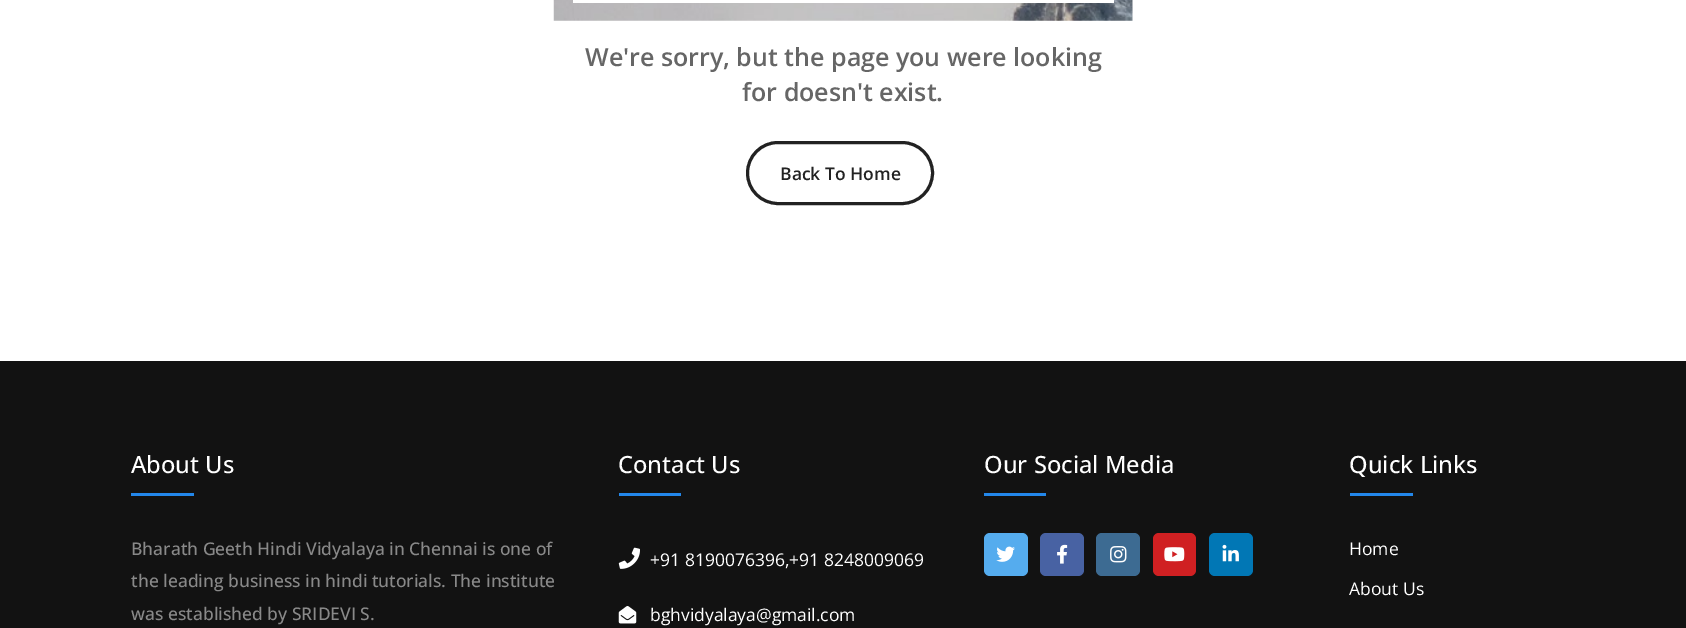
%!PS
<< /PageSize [1686 628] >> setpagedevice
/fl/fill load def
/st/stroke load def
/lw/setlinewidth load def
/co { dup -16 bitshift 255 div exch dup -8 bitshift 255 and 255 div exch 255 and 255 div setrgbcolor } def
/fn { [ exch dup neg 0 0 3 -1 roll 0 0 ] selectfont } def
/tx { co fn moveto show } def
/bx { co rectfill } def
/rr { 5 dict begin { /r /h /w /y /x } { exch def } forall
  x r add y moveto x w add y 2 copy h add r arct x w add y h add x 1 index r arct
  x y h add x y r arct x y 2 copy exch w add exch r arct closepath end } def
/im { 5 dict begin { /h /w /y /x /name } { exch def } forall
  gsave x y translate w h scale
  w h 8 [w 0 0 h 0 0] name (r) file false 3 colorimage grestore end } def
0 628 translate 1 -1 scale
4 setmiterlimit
0 0 1686 628 16#FFFFFF bx
(media/1.raw) 553 0 580 21 im
573 0 541 3 16#FFFFFF bx
16#222222 co
3 lw
747.5 142.5 185 61 30.5 rr st
0 361 1686 267 16#121212 bx
131 493 63 3 16#2387EA bx
619 493 62 3 16#2387EA bx
(media/2.raw) 618 547 22 22 im
(media/3.raw) 618 606 19 18 im
984 493 62 3 16#2387EA bx
16#55ACEE co
984 533 44 43 6 rr fl
(media/4.raw) 996 546 19 16 im
16#4862A3 co
1040 533 44 43 6 rr fl
(media/5.raw) 1057 544 11 20 im
16#3D6B92 co
1096 533 44 43 6 rr fl
(media/6.raw) 1110 546 17 17 im
16#D02022 co
1153 533 43 43 6 rr fl
(media/7.raw) 1164 547 21 15 im
16#0177B5 co
1209 533 44 43 6 rr fl
(media/8.raw) 1222 544 17 18 im
1350 493 63 3 16#2387EA bx
(We're sorry, but the page you were looking) 585 66 /OpenSans-SemiBold 25 16#666666 tx
(for doesn't exist.) 742 101 /OpenSans-SemiBold 25 16#666666 tx
(Back To Home) 780 180 /OpenSans-SemiBold 17.5 16#222222 tx
(About Us) 131 473 /OpenSans-Medium 23.75 16#FFFFFF tx
(Bharath Geeth Hindi Vidyalaya in Chennai is one of) 131 555 /OpenSans-Medium 17.5 16#898989 tx
(the leading business in hindi tutorials. The institute) 131 587 /OpenSans-Medium 17.5 16#898989 tx
(was established by SRIDEVI S.) 131 620 /OpenSans-Medium 17.5 16#898989 tx
(Contact Us) 618 473 /OpenSans-Medium 23.75 16#FFFFFF tx
(+91 8190076396,+91 8248009069) 650 566 /OpenSans-Regular 17.5 16#FFFFFF tx
(bghvidyalaya@gmail.com) 650 621 /OpenSans-Regular 17.5 16#FFFFFF tx
(Our Social Media) 984 473 /OpenSans-Medium 23.75 16#FFFFFF tx
(Quick Links) 1349 473 /OpenSans-Medium 23.75 16#FFFFFF tx
(Home) 1349 555 /OpenSans-Regular 17.5 16#FFFFFF tx
(About Us) 1349 595 /OpenSans-Regular 17.5 16#FFFFFF tx
showpage
